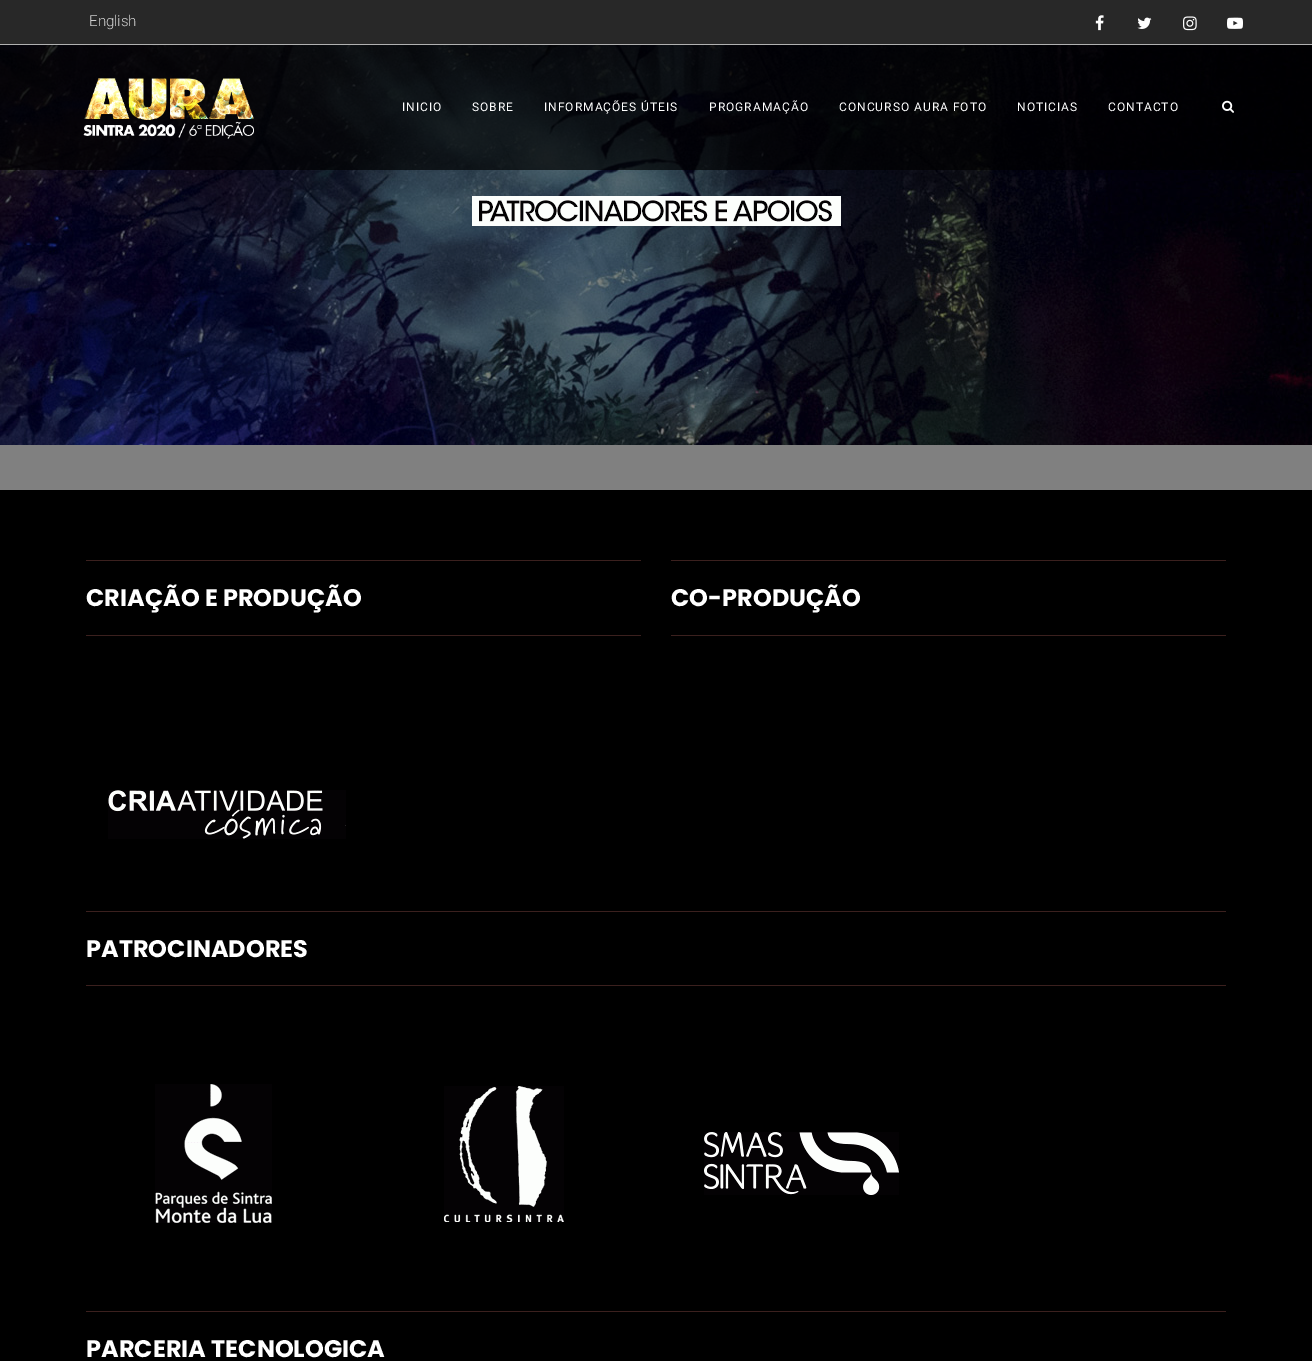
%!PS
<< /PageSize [1312 1361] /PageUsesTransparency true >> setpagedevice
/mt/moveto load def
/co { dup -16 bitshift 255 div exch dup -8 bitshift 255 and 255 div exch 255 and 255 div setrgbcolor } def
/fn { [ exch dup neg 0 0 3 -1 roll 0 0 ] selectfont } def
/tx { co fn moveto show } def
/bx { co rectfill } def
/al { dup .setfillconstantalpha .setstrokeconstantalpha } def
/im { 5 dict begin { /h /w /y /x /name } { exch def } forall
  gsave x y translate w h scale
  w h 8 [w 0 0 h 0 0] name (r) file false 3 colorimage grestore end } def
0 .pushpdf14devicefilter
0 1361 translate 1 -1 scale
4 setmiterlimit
0 0 1312 1361 16#808080 bx
(media/7.raw) 0 45 1312 400 im
0.69 al
0 0 1312 170 16#000000 bx
1 al
0 44 1312 1 16#B1B1B1 bx
(media/1.raw) 1095 15 9 16 im
(media/2.raw) 1137 17 15 12 im
(media/3.raw) 1183 16 14 15 im
(media/4.raw) 1227 17 16 12 im
(media/5.raw) 83 78 171 61 im
(media/6.raw) 1222 100 12 13 im
(media/8.raw) 472 196 369 30 im
0 490 1312 871 16#000000 bx
86 560 555 1 16#3B201E bx
86 635 555 1 16#3B201E bx
671 560 555 1 16#3B201E bx
671 635 555 1 16#3B201E bx
(media/9.raw) 108 790 238 49 im
86 911 1140 1 16#3B201E bx
86 985 1140 1 16#3B201E bx
(media/10.raw) 155 1084 117 139 im
(media/11.raw) 444 1086 120 136 im
(media/12.raw) 704 1132 195 63 im
86 1311 1140 1 16#3B201E bx
(English) 89 26 /Roboto-Light 15 16#CFCFCF tx
/Roboto-Regular 12 fn
16#FFFFFF co
402 111 mt 1 0 (INICIO) ashow
472 111 mt 1 0 (SOBRE) ashow
544 111 mt 1 0 (INFORMAÇÕES ÚTEIS) ashow
709 111 mt 1 0 (PROGRAMAÇÃO) ashow
839 111 mt 1 0 (CONCURSO AURA FOTO) ashow
1017 111 mt 1 0 (NOTICIAS) ashow
1108 111 mt 1 0 (CONTACTO) ashow
(CRIAÇÃO E PRODUÇÃO) 86 606 /Poppins-Bold 24 16#FFFFFF tx
(CO-PRODUÇÃO) 671 606 /Poppins-Bold 24 16#FFFFFF tx
(PATROCINADORES) 86 957 /Poppins-Bold 24 16#FFFFFF tx
(PARCERIA TECNOLOGICA) 86 1357 /Poppins-Bold 24 16#FFFFFF tx
.poppdf14devicefilter showpage
